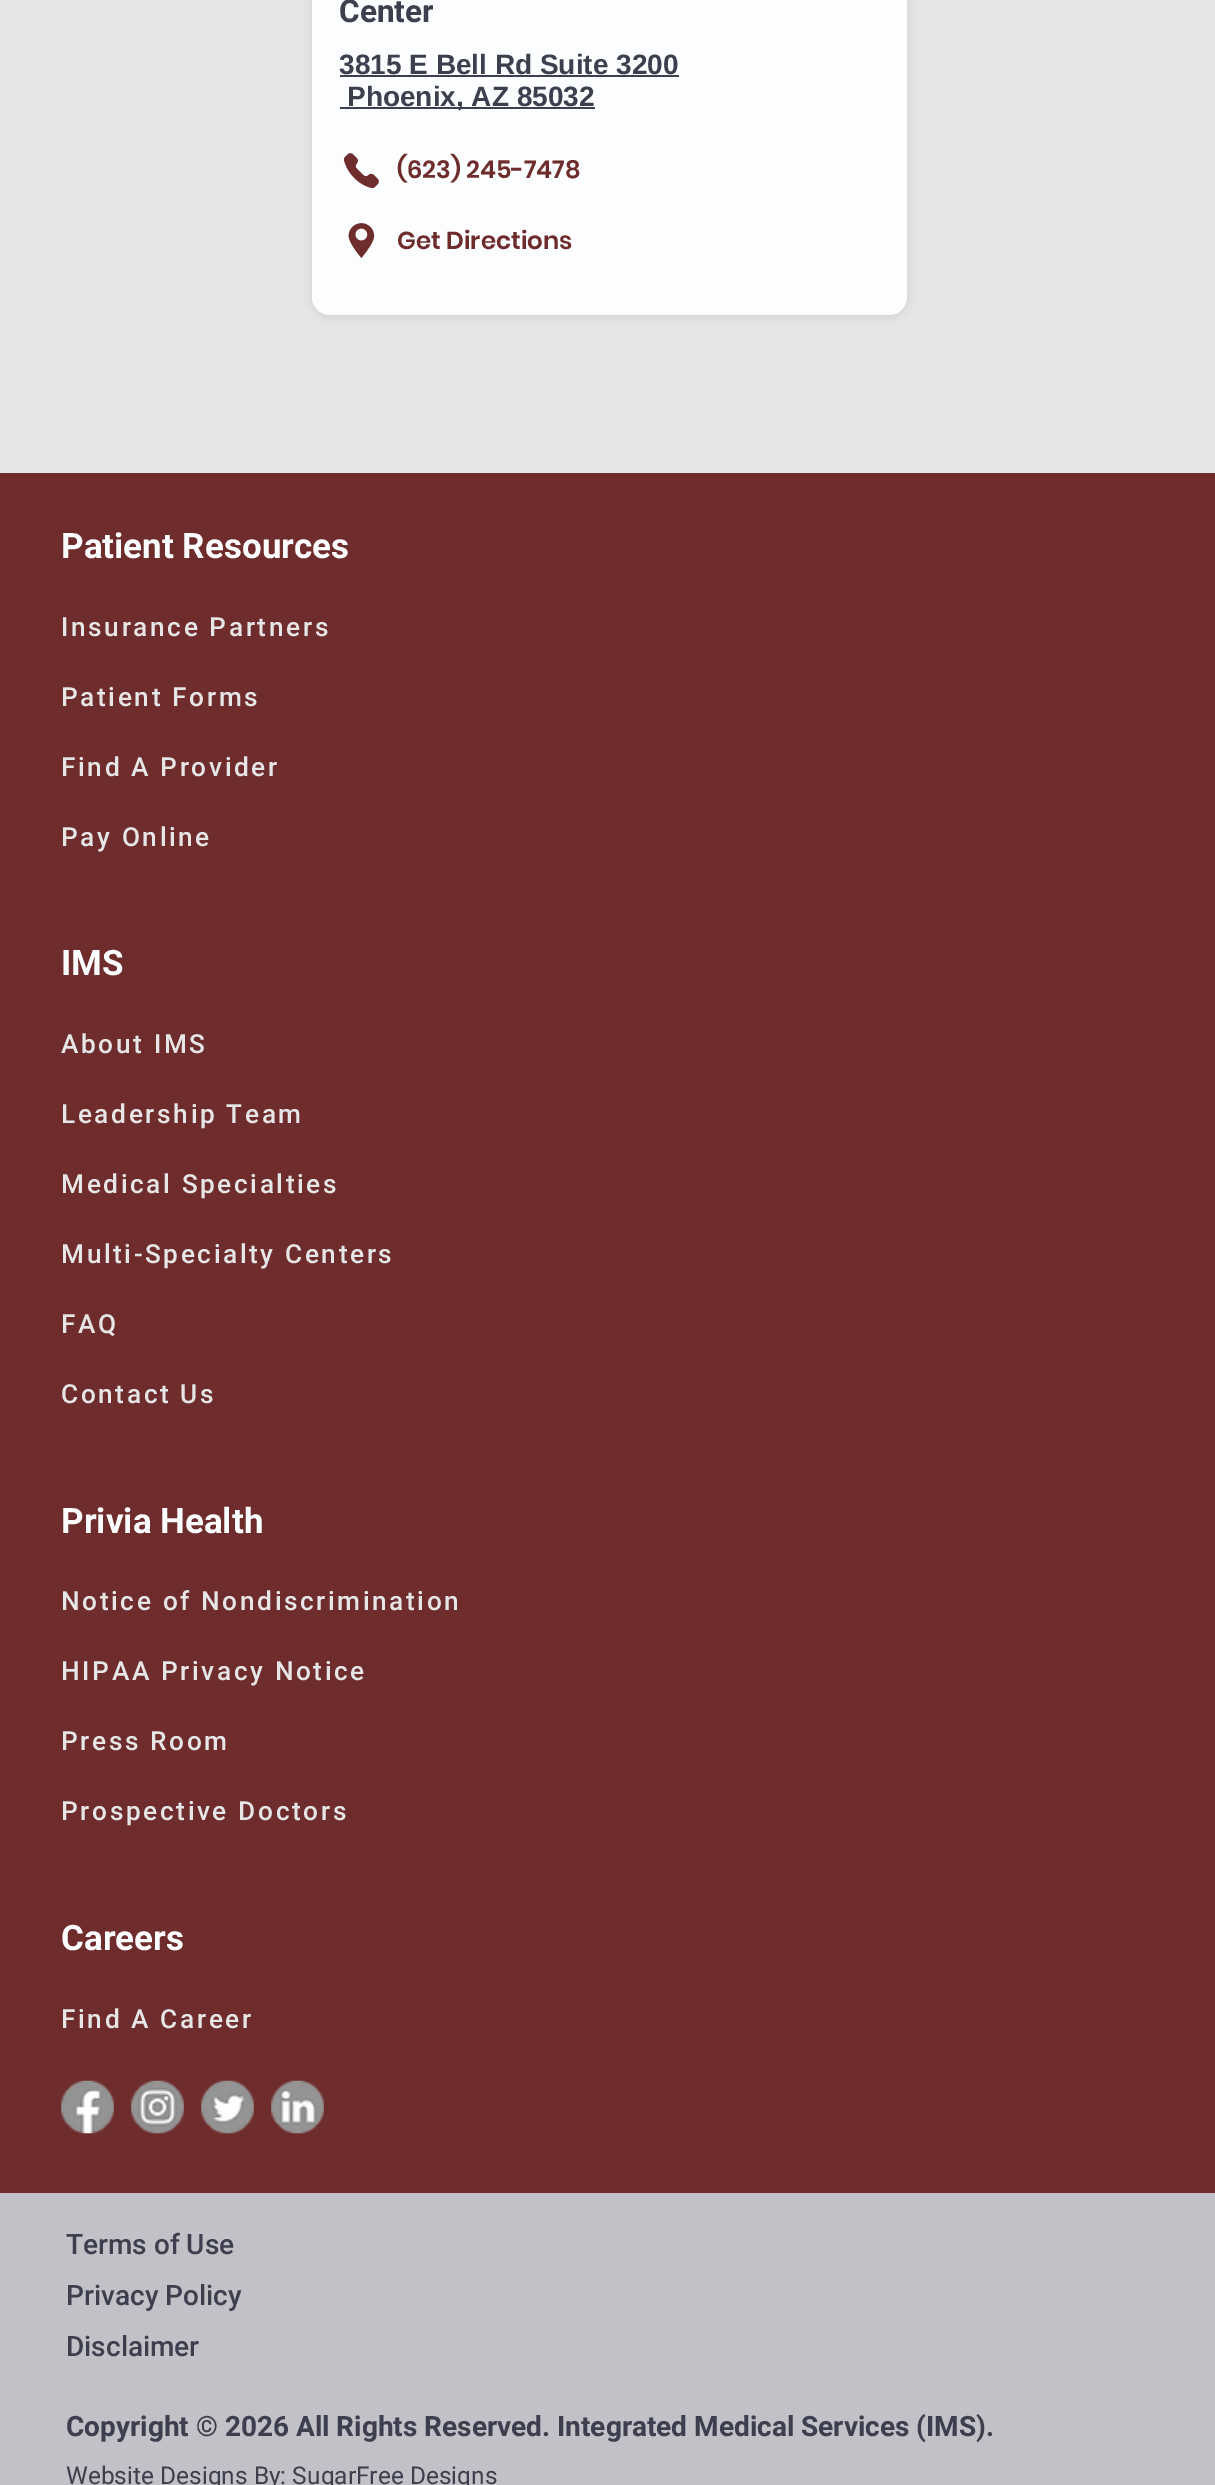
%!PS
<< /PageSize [1215 2485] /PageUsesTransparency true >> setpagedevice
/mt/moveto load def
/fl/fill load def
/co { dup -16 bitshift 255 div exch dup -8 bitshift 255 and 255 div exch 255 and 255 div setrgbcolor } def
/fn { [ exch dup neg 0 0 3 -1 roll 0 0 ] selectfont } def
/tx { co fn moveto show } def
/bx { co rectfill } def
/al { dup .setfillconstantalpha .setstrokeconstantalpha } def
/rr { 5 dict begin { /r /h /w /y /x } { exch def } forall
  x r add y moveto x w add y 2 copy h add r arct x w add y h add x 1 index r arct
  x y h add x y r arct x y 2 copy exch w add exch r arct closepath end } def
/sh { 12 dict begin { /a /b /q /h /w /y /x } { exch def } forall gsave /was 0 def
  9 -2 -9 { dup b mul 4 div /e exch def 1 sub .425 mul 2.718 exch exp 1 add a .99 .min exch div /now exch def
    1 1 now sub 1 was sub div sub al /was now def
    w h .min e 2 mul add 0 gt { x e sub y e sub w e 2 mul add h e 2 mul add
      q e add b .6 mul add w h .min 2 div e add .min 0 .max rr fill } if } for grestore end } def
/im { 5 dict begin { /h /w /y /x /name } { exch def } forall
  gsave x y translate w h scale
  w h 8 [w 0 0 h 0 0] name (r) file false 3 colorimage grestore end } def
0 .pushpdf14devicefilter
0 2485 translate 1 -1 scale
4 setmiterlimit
0 0 1215 2485 16#E6E6E6 bx
16#000000 co
312 -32 595 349 18 4.5 .1 sh
16#FCFDFF co
312 -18 595 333 18 rr fl
340 75 339 2 16#3E3F4E bx
340 107 255 2 16#3E3F4E bx
(media/1.raw) 343 153 36 36 im
(media/2.raw) 348 223 27 35 im
0 473 1215 1720 16#6F2C2C bx
(media/3.raw) 61 2080 53 54 im
(media/4.raw) 131 2080 53 54 im
(media/5.raw) 201 2080 53 54 im
(media/6.raw) 271 2080 53 54 im
0 2193 1215 292 16#C1C1C7 bx
(Center) 339 22 /Roboto-Bold 31.5 16#3E3F4E tx
(3815 E Bell Rd Suite 3200) 339 74 /LiberationSans-Bold 28 16#3E3F4E tx
(Phoenix, AZ 85032) 347 106 /LiberationSans-Bold 28 16#3E3F4E tx
(\(623\) 245-7478) 397 178 /Poppins-SemiBold 24.5 16#6F2C2C tx
(Get Directions) 397 249 /Poppins-SemiBold 24.5 16#6F2C2C tx
(Patient Resources) 61 558 /Roboto-Bold 35 16#FCFDFF tx
/Roboto-Medium 26.25 fn
16#E6E6E6 co
61 636 mt 2.6 0 (Insurance Partners) ashow
61 706 mt 2.6 0 (Patient Forms) ashow
61 776 mt 2.6 0 (Find A Provider) ashow
61 846 mt 2.6 0 (Pay Online) ashow
(IMS) 61 975 /Roboto-Bold 35 16#FCFDFF tx
/Roboto-Medium 26.25 fn
16#E6E6E6 co
61 1053 mt 2.6 0 (About IMS) ashow
61 1123 mt 2.6 0 (Leadership Team) ashow
61 1193 mt 2.6 0 (Medical Specialties) ashow
61 1263 mt 2.6 0 (Multi-Specialty Centers) ashow
61 1333 mt 2.6 0 (FAQ) ashow
61 1403 mt 2.6 0 (Contact Us) ashow
(Privia Health) 61 1533 /Roboto-Bold 35 16#FCFDFF tx
/Roboto-Medium 26.25 fn
16#E6E6E6 co
61 1610 mt 2.6 0 (Notice of Nondiscrimination) ashow
61 1680 mt 2.6 0 (HIPAA Privacy Notice) ashow
61 1750 mt 2.6 0 (Press Room) ashow
61 1820 mt 2.6 0 (Prospective Doctors) ashow
(Careers) 61 1950 /Roboto-Bold 35 16#FCFDFF tx
/Roboto-Medium 26.25 fn
16#E6E6E6 co
61 2028 mt 2.6 0 (Find A Career) ashow
(Terms of Use) 66 2254 /Roboto-Medium 28 16#3E3F4E tx
(Privacy Policy) 66 2305 /Roboto-Medium 28 16#3E3F4E tx
(Disclaimer) 66 2356 /Roboto-Medium 28 16#3E3F4E tx
(Copyright © 2026 All Rights Reserved. Integrated Medical Services \(IMS\).) 66 2436 /Roboto-Bold 28 16#3E3F4E tx
(Website Designs By: SugarFree Designs) 66 2484 /Roboto-Regular 24.5 16#3E3F4E tx
.poppdf14devicefilter showpage
